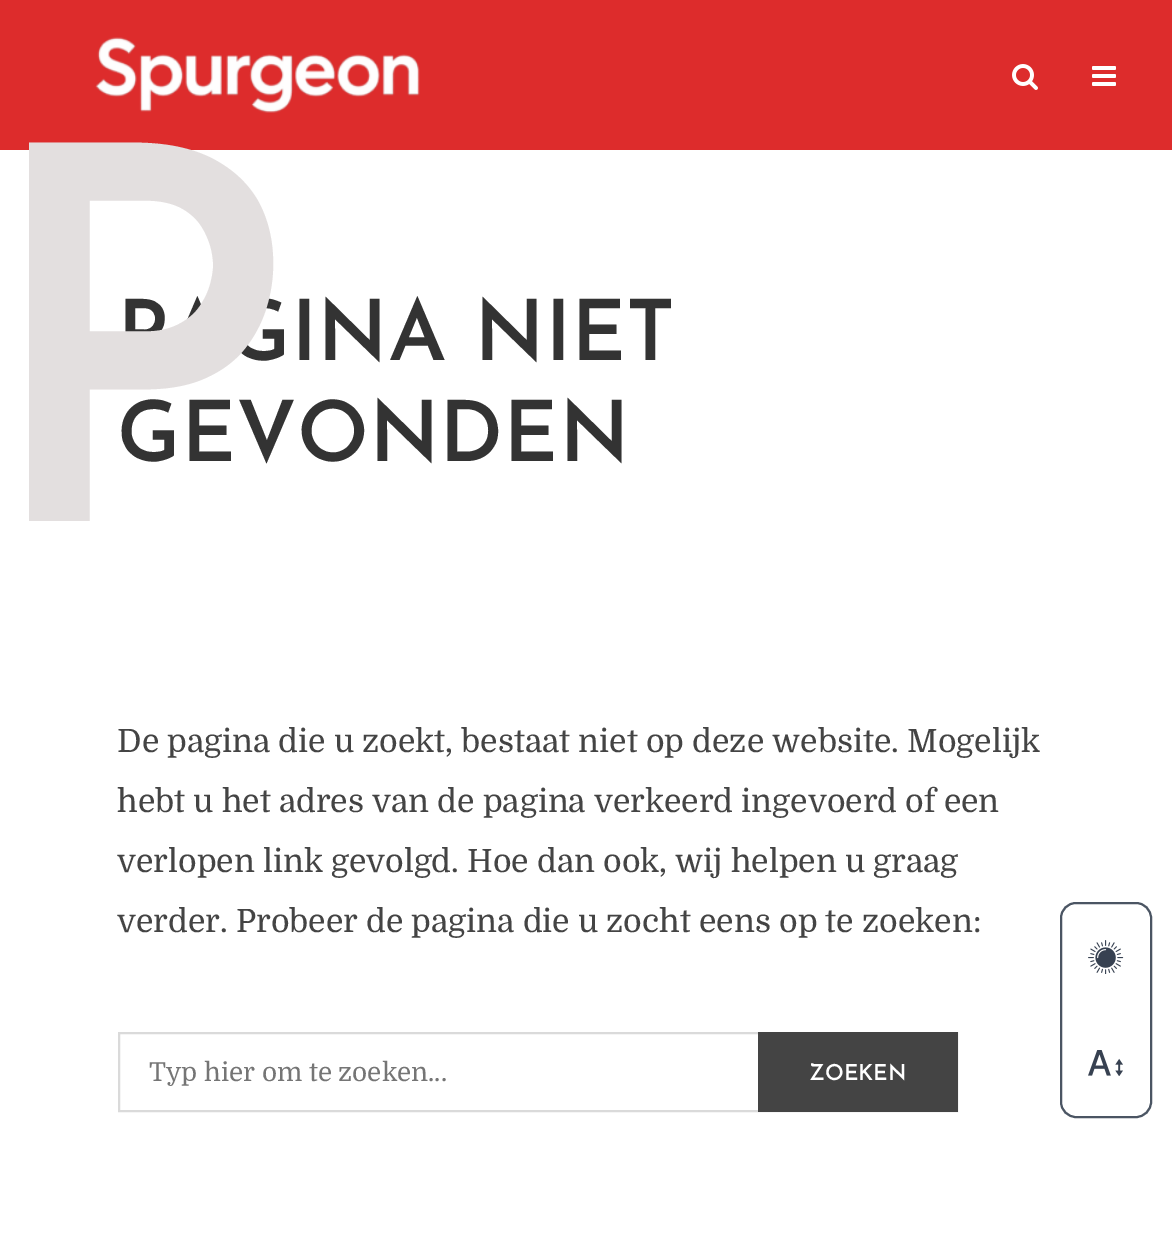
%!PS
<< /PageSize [1172 1250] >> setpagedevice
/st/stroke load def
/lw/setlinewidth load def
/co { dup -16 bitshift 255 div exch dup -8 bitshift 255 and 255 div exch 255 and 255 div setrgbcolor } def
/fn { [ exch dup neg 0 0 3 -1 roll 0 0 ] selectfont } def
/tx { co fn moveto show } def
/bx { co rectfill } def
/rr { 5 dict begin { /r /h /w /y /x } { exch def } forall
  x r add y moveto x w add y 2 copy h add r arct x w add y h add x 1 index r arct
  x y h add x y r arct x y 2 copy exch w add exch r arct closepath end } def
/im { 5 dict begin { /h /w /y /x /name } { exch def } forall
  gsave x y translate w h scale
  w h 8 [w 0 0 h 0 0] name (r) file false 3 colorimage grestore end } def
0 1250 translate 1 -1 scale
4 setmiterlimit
0 0 1172 1250 16#DD2C2C bx
(media/1.raw) 95 37 325 76 im
(media/2.raw) 1012 64 26 26 im
(media/3.raw) 1092 66 24 20 im
0 150 1172 1100 16#FFFFFF bx
16#DADADA co
2 lw
119 1033 838 78 rectstroke
758 1032 200 80 16#444444 bx
16#4B5563 co
1061 903 90 214 15 rr st
(media/4.raw) 1088 940 36 34 im
(media/5.raw) 1088 1050 35 26 im
(PAGINA NIET) 117 360 /JosefinSans-SemiBold 84 16#333333 tx
(GEVONDEN) 117 461 /JosefinSans-SemiBold 84 16#333333 tx
(P) -23 521 /JosefinSans-SemiBold 520 16#E3DFDF tx
(De pagina die u zoekt, bestaat niet op deze website. Mogelijk) 117 752 /Domine-Regular 32 16#444444 tx
(hebt u het adres van de pagina verkeerd ingevoerd of een) 117 812 /Domine-Regular 32 16#444444 tx
(verlopen link gevolgd. Hoe dan ook, wij helpen u graag) 117 872 /Domine-Regular 32 16#444444 tx
(verder. Probeer de pagina die u zocht eens op te zoeken:) 117 932 /Domine-Regular 32 16#444444 tx
(Typ hier om te zoeken...) 149 1081 /Domine-Regular 26 16#757575 tx
(ZOEKEN) 809 1080 /JosefinSans-SemiBold 22 16#FFFFFF tx
showpage
